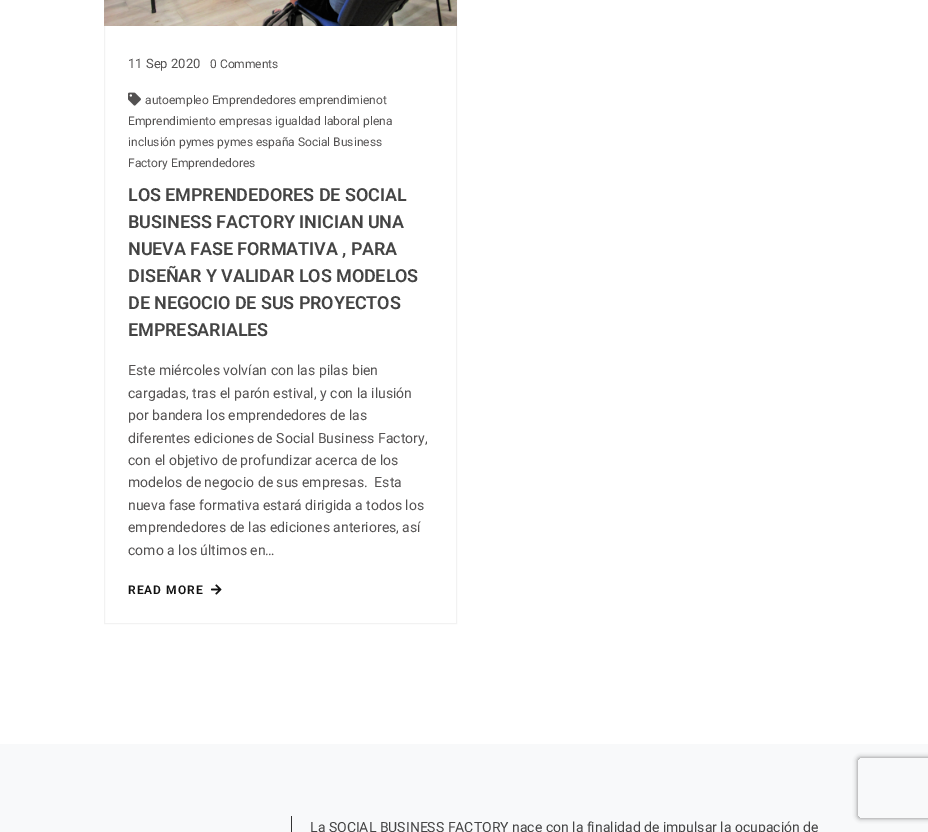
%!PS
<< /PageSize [928 832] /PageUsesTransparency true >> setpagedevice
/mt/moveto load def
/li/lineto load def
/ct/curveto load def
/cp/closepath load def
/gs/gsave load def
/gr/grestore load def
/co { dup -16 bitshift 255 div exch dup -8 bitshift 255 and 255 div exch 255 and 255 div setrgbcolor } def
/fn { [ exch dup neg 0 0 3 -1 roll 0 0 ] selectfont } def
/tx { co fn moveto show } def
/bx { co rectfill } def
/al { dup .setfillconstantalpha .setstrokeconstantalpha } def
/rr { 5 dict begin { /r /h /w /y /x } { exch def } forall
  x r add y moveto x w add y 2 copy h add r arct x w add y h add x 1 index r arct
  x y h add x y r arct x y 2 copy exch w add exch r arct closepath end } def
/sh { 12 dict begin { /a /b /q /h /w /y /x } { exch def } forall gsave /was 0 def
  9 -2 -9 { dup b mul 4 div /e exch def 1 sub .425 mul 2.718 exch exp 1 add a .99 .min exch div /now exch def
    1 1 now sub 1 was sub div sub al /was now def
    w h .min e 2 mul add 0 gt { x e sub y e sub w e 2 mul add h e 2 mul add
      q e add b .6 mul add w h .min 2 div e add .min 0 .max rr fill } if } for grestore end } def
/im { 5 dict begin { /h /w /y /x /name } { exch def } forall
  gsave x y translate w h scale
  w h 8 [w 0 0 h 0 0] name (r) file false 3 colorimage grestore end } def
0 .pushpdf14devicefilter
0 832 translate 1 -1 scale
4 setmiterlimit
0 0 928 832 16#FFFFFF bx
16#F2F2F2 co
104.5 -.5 352 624 rectstroke
(media/1.raw) 104 0 353 26 im
(media/2.raw) 128 92 13 14 im
(media/3.raw) 211 584 11 11 im
0 744 928 88 16#F8F9FA bx
291 816 1 16 16#333333 bx
gs
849 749 mt 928 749 li 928 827 li 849 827 li cp 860 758 mt 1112 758 li 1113 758 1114 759 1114 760 ct 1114 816 li 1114 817 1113 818 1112 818 ct 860 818 li 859 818 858 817 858 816 ct 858 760 li 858 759 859 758 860 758 ct cp eoclip newpath
16#808080 co
858 758 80 60 2 2.5 1 sh
gr
(11 Sep 2020) 128 68 /Roboto-Regular 13 16#535151 tx
(0 Comments) 210 68 /Roboto-Regular 12 16#535151 tx
(autoempleo Emprendedores emprendimienot) 145 104 /Roboto-Regular 12 16#535151 tx
(Emprendimiento empresas igualdad laboral plena) 128 125 /Roboto-Regular 12 16#535151 tx
(inclusión pymes pymes españa Social Business) 128 146 /Roboto-Regular 12 16#535151 tx
(Factory Emprendedores) 128 167 /Roboto-Regular 12 16#535151 tx
/Roboto-SemiBold 18 fn
16#444444 co
128 201 mt -.1 0 (LOS EMPRENDEDORES DE SOCIAL) ashow
128 228 mt -.1 0 (BUSINESS FACTORY INICIAN UNA) ashow
128 255 mt -.1 0 (NUEVA FASE FORMATIVA , PARA) ashow
128 282 mt -.1 0 (DISEÑAR Y VALIDAR LOS MODELOS) ashow
128 309 mt -.1 0 (DE NEGOCIO DE SUS PROYECTOS) ashow
128 336 mt -.1 0 (EMPRESARIALES) ashow
(Este miércoles volvían con las pilas bien) 128 375 /Roboto-Regular 14 16#535151 tx
(cargadas, tras el parón estival, y con la ilusión) 128 398 /Roboto-Regular 14 16#535151 tx
(por bandera los emprendedores de las) 128 420 /Roboto-Regular 14 16#535151 tx
(diferentes ediciones de Social Business Factory,) 128 443 /Roboto-Regular 14 16#535151 tx
(con el objetivo de profundizar acerca de los) 128 465 /Roboto-Regular 14 16#535151 tx
(modelos de negocio de sus empresas.  Esta) 128 487 /Roboto-Regular 14 16#535151 tx
(nueva fase formativa estará dirigida a todos los) 128 510 /Roboto-Regular 14 16#535151 tx
(emprendedores de las ediciones anteriores, así) 128 532 /Roboto-Regular 14 16#535151 tx
(como a los últimos en…) 128 555 /Roboto-Regular 14 16#535151 tx
/Roboto-SemiBold 12 fn
16#111111 co
128 594 mt 1 0 (READ MORE) ashow
(La SOCIAL BUSINESS FACTORY nace con la finalidad de impulsar la ocupación de) 310 832 /Roboto-Regular 14 16#444444 tx
.poppdf14devicefilter showpage
